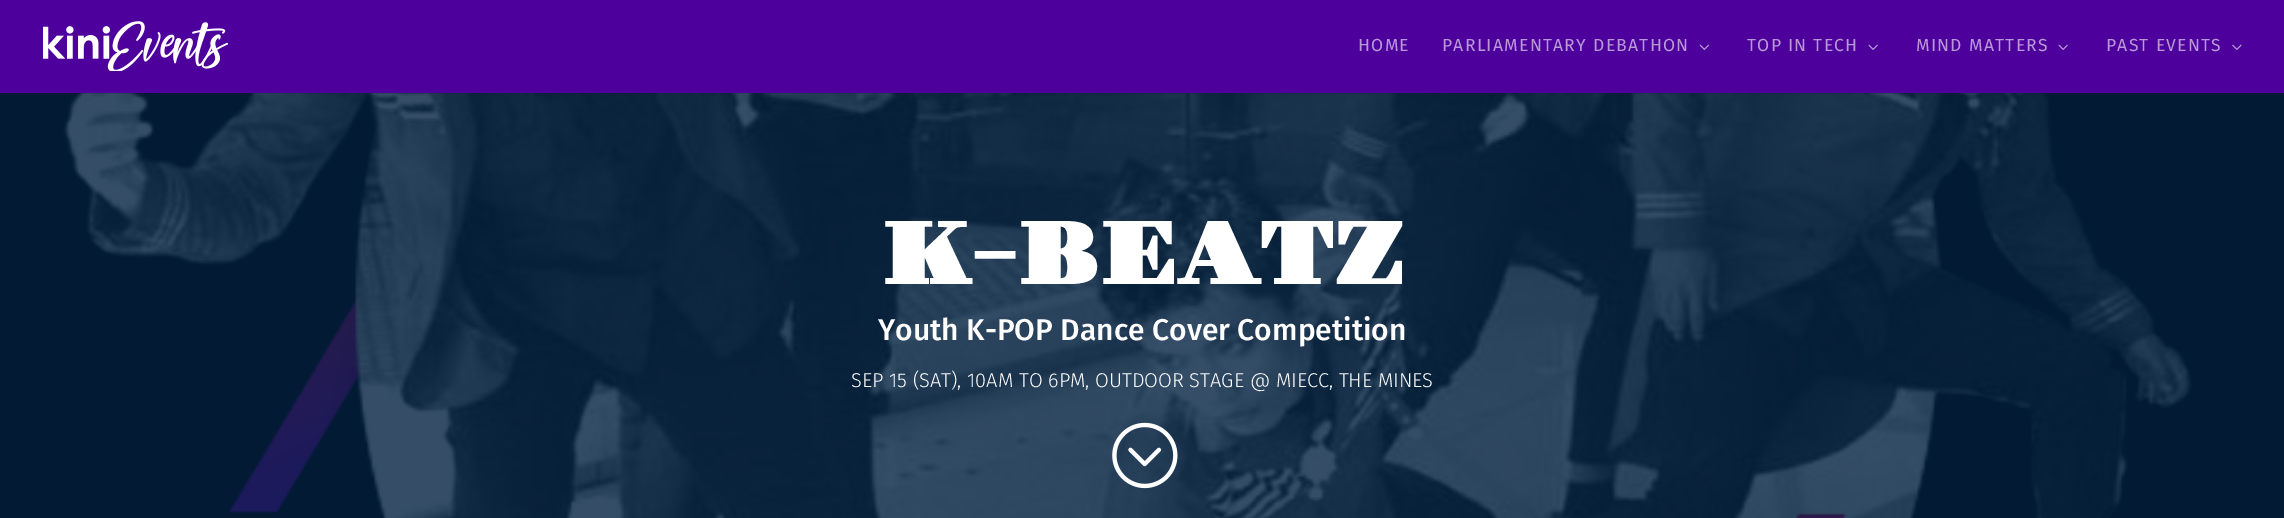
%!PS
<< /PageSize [2284 518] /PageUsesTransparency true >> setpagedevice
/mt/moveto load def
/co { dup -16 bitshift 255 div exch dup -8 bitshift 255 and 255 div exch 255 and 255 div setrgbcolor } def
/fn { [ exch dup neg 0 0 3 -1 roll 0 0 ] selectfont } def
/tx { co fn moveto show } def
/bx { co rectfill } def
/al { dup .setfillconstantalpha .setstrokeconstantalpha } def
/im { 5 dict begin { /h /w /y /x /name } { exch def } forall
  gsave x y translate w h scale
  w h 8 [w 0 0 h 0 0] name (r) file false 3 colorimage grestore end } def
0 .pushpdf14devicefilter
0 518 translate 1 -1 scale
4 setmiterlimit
0 0 2284 518 16#021A34 bx
(media/5.raw) 53 93 2140 425 im
0.1 al
0 93 2284 1 16#000000 bx
1 al
0 0 2284 93 16#4D009B bx
(media/1.raw) 43 21 185 50 im
(media/2.raw) 1699 44 10 6 im
(media/3.raw) 1868 44 10 6 im
(media/3.raw) 2058 44 10 6 im
(media/4.raw) 2232 44 10 6 im
(media/6.raw) 1112 422 66 67 im
/FiraSans-Regular 17.5 fn
16#B899D7 co
1358 51 mt 1.25 0 (HOME) ashow
1442 51 mt 1.25 0 (PARLIAMENTARY DEBATHON) ashow
1747 51 mt 1.25 0 (TOP IN TECH) ashow
1916 51 mt 1.25 0 (MIND MATTERS) ashow
2106 51 mt 1.25 0 (PAST EVENTS) ashow
(K-BEATZ) 881 284 /GravitasOne-Bold 87.5 16#FFFFFF tx
(Youth K-POP Dance Cover Competition) 878 340 /FiraSans-Medium 30 16#FFFFFF tx
(SEP 15 \(SAT\), 10AM TO 6PM, OUTDOOR STAGE @ MIECC, THE MINES) 851 387 /FiraSans-Light 20 16#FFFFFF tx
.poppdf14devicefilter showpage
